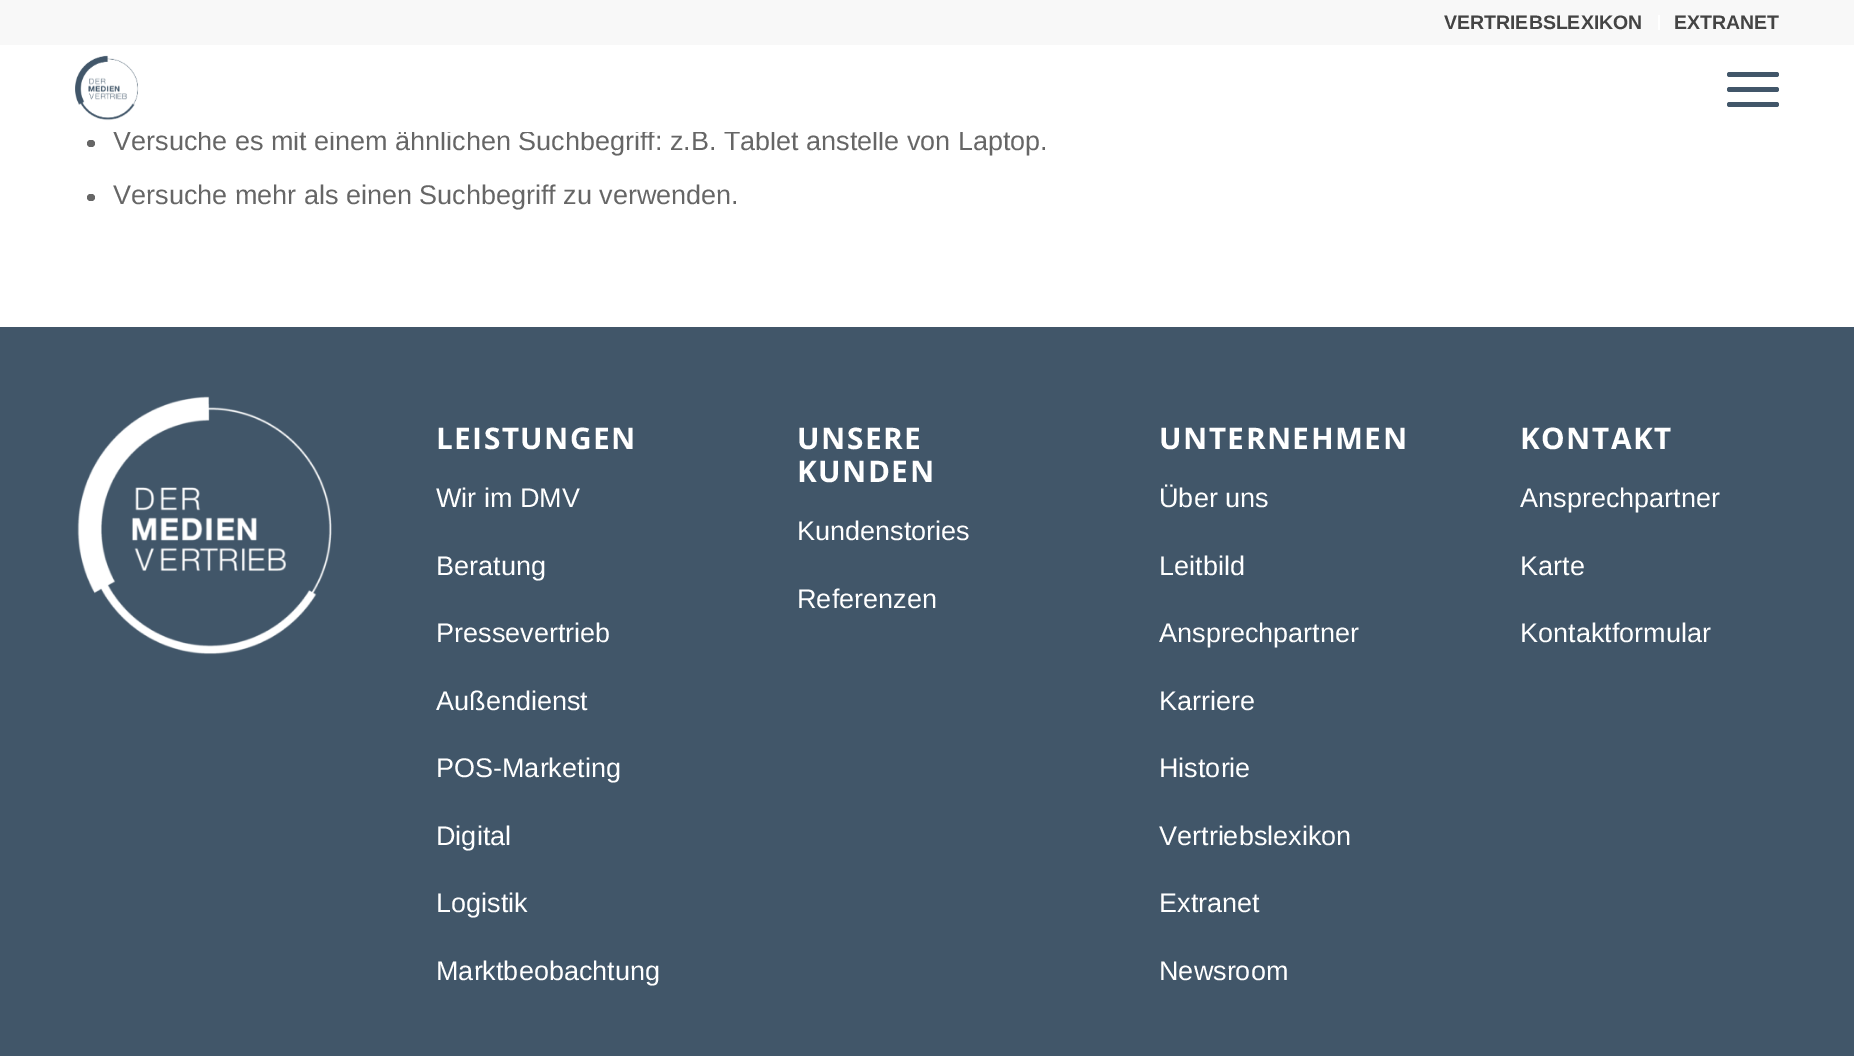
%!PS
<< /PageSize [1854 1056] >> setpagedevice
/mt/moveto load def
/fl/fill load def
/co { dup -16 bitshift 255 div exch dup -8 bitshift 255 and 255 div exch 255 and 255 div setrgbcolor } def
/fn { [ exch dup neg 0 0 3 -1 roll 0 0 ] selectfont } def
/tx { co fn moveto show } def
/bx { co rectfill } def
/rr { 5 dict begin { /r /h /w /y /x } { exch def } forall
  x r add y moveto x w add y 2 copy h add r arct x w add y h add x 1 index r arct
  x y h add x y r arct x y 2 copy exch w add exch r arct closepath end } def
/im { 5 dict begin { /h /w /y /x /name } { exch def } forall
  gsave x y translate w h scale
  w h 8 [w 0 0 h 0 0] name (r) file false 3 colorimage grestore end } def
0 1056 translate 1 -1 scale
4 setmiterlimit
0 0 1854 1056 16#FFFFFF bx
0 0 1854 45 16#F8F8F8 bx
1658 15 2 15 16#FFFFFF bx
(media/1.raw) 75 55 64 66 im
16#415669 co
1727 87 52 5 2.5 rr fl
1727 72 52 5 2.5 rr fl
1727 102 52 5 2.5 rr fl
16#666666 co
87 140 8 7 3.5 rr fl
87 194 8 7 3.5 rr fl
0 327 1854 729 16#415669 bx
(media/2.raw) 77 396 255 259 im
(VERTRIEBSLEXIKON) 1444 29 /LiberationSans-Bold 19.5 16#444444 tx
(EXTRANET) 1674 29 /LiberationSans-Bold 19.5 16#444444 tx
(Versuche es mit einem ähnlichen Suchbegriff: z.B. Tablet anstelle von Laptop.) 113 150 /LiberationSans-Regular 27 16#666666 tx
112 130 851 2 16#FFFFFF bx
(Versuche mehr als einen Suchbegriff zu verwenden.) 113 204 /LiberationSans-Regular 27 16#666666 tx
/OpenSans-Bold 29.75 fn
16#FFFFFF co
436 449 mt 1.5 0 (LEISTUNGEN) ashow
(Wir im DMV) 436 507 /LiberationSans-Regular 27 16#FFFFFF tx
(Beratung) 436 575 /LiberationSans-Regular 27 16#FFFFFF tx
(Pressevertrieb) 436 642 /LiberationSans-Regular 27 16#FFFFFF tx
(Außendienst) 436 710 /LiberationSans-Regular 27 16#FFFFFF tx
(POS-Marketing) 436 777 /LiberationSans-Regular 27 16#FFFFFF tx
(Digital) 436 845 /LiberationSans-Regular 27 16#FFFFFF tx
(Logistik) 436 912 /LiberationSans-Regular 27 16#FFFFFF tx
(Marktbeobachtung) 436 980 /LiberationSans-Regular 27 16#FFFFFF tx
/OpenSans-Bold 29.75 fn
797 449 mt 1.5 0 (UNSERE) ashow
797 482 mt 1.5 0 (KUNDEN) ashow
(Kundenstories) 797 540 /LiberationSans-Regular 27 16#FFFFFF tx
(Referenzen) 797 608 /LiberationSans-Regular 27 16#FFFFFF tx
/OpenSans-Bold 29.75 fn
1159 449 mt 1.5 0 (UNTERNEHMEN) ashow
(Über uns) 1159 507 /LiberationSans-Regular 27 16#FFFFFF tx
(Leitbild) 1159 575 /LiberationSans-Regular 27 16#FFFFFF tx
(Ansprechpartner) 1159 642 /LiberationSans-Regular 27 16#FFFFFF tx
(Karriere) 1159 710 /LiberationSans-Regular 27 16#FFFFFF tx
(Historie) 1159 777 /LiberationSans-Regular 27 16#FFFFFF tx
(Vertriebslexikon) 1159 845 /LiberationSans-Regular 27 16#FFFFFF tx
(Extranet) 1159 912 /LiberationSans-Regular 27 16#FFFFFF tx
(Newsroom) 1159 980 /LiberationSans-Regular 27 16#FFFFFF tx
/OpenSans-Bold 29.75 fn
1520 449 mt 1.5 0 (KONTAKT) ashow
(Ansprechpartner) 1520 507 /LiberationSans-Regular 27 16#FFFFFF tx
(Karte) 1520 575 /LiberationSans-Regular 27 16#FFFFFF tx
(Kontaktformular) 1520 642 /LiberationSans-Regular 27 16#FFFFFF tx
showpage
